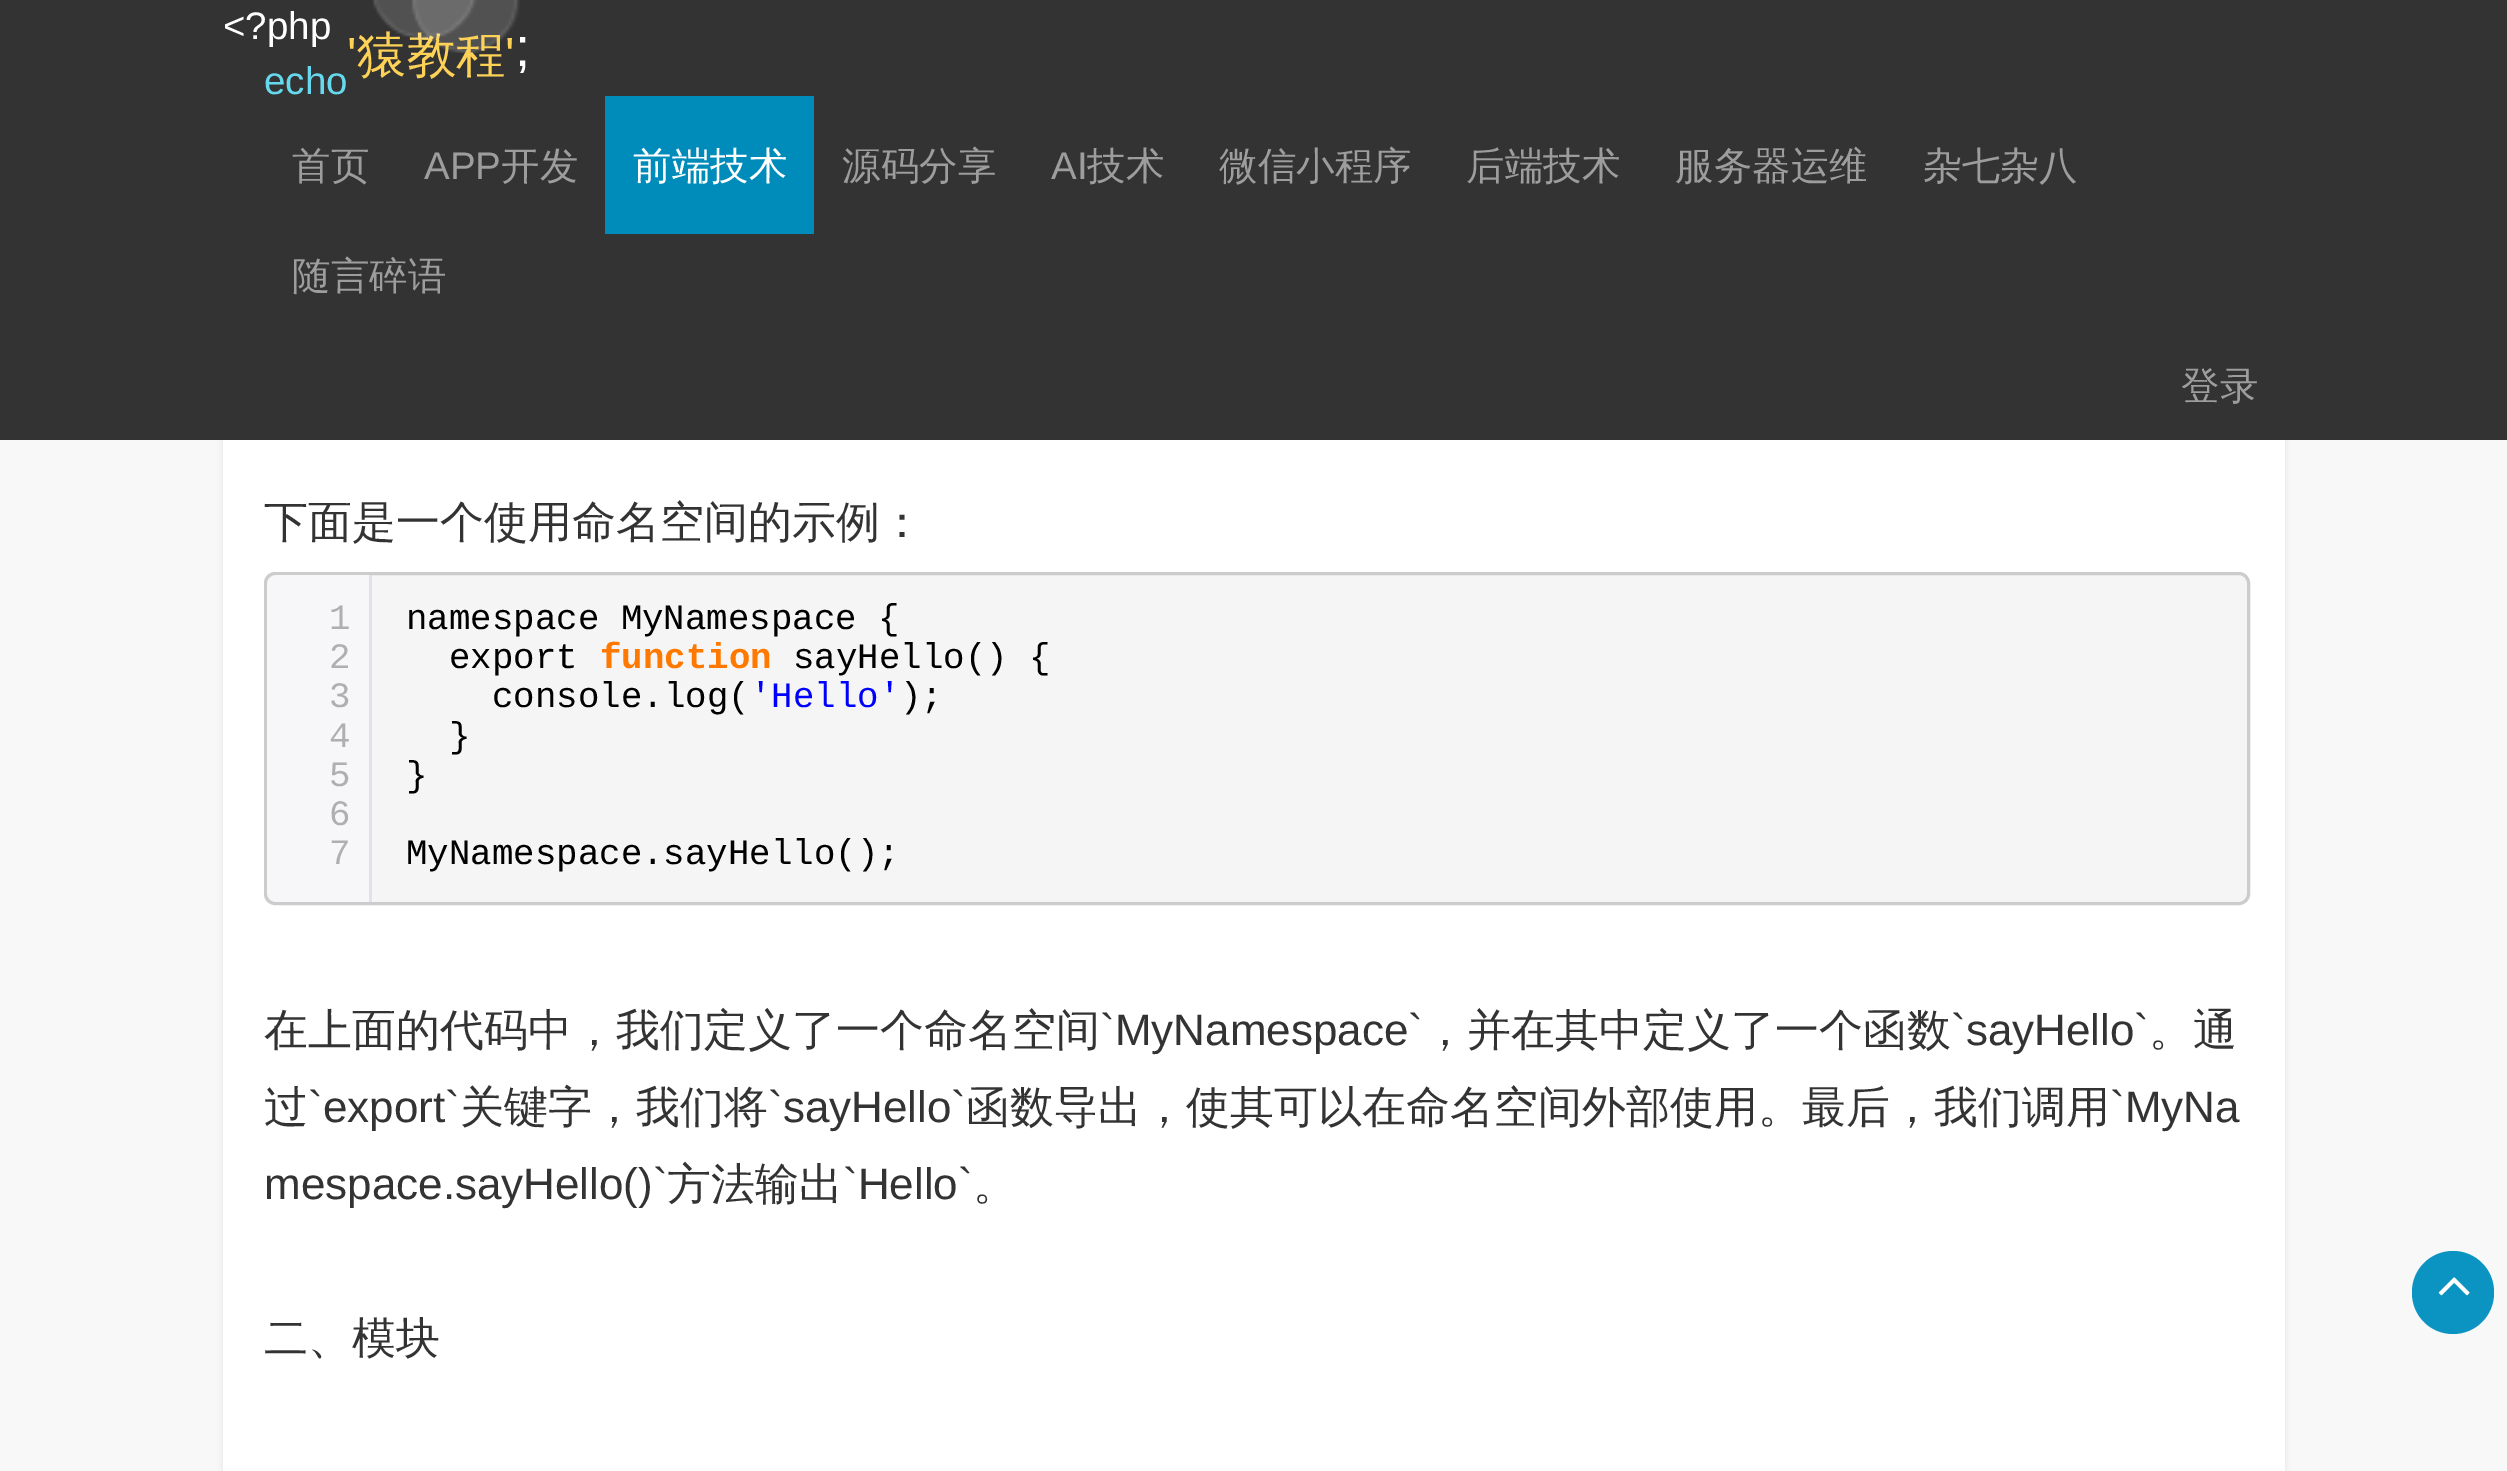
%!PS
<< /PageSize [2507 1471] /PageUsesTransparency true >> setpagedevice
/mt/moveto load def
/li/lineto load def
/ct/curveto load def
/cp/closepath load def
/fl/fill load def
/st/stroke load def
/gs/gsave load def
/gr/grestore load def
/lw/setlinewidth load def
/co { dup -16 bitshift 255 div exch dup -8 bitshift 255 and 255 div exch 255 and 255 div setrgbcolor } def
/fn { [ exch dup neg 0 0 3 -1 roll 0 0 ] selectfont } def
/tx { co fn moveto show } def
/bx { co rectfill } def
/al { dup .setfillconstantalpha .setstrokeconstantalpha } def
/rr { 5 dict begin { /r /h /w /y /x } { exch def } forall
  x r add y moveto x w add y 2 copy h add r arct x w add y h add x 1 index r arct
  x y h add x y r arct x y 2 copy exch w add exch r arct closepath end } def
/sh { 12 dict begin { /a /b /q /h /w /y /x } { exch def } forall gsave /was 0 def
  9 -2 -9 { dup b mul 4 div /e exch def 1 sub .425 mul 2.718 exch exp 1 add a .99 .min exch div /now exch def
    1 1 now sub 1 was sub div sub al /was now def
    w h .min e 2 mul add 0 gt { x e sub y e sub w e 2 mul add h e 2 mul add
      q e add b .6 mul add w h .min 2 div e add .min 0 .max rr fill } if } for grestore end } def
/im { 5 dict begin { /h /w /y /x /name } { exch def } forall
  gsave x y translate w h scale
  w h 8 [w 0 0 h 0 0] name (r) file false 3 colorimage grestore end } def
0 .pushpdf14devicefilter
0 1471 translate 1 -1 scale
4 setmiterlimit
0 0 2507 1471 16#F8F8F8 bx
16#E2E2E2 co
223 -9 2062 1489 0 3 1 sh
0 0 2507 440 16#333333 bx
(media/1.raw) 411 0 109 53 im
605 96 209 138 16#008CBA bx
223 440 2062 1031 16#FFFFFF bx
16#F5F5F5 co
265.5 573.5 1983 330 9.5 rr gs fl gr
16#CCCCCC co
3 lw
st
16#F7F7F9 co
278 575 mt 371 575 li 371 902 li 278 902 li 272 902 267 897 267 891 ct 267 586 li 267 580 272 575 278 575 ct cp fl
369 575 3 327 16#E1E1E8 bx
16#0B94C1 co
2412 1251 82 83 41 rr fl
(media/3.raw) 2438 1277 32 19 im
(<?php) 223 39 /LiberationSans-Regular 38.5 16#FFFFFF tx
(echo) 264 94 /LiberationSans-Regular 38.5 16#66D9EF tx
(') 347 72 /LiberationSans-Regular 49.5 16#FDD257 tx
(猿教程) 357 72 /WenQuanYiZenHei-Medium 49.5 16#FDD257 tx
(media/2.raw) 372 0 105 40 im
(') 505 72 /LiberationSans-Regular 49.5 16#FDD257 tx
(;) 515 66 /LiberationSans-Regular 55 16#FFFFFF tx
(首页) 292 179 /WenQuanYiZenHei-Medium 38.5 16#9D9D9D tx
(源码分享) 842 179 /WenQuanYiZenHei-Medium 38.5 16#9D9D9D tx
(微信小程序) 1219 179 /WenQuanYiZenHei-Medium 38.5 16#9D9D9D tx
(服务器运维) 1675 179 /WenQuanYiZenHei-Medium 38.5 16#9D9D9D tx
(APP) 424 179 /LiberationSans-Regular 38.5 16#9D9D9D tx
(开发) 501 179 /WenQuanYiZenHei-Medium 38.5 16#9D9D9D tx
(前端技术) 633 179 /WenQuanYiZenHei-Medium 38.5 16#FFFFFF tx
(AI) 1051 179 /LiberationSans-Regular 38.5 16#9D9D9D tx
(技术) 1087 179 /WenQuanYiZenHei-Medium 38.5 16#9D9D9D tx
(后端技术) 1466 179 /WenQuanYiZenHei-Medium 38.5 16#9D9D9D tx
(杂七杂八) 1923 179 /WenQuanYiZenHei-Medium 38.5 16#9D9D9D tx
(随言碎语) 292 289 /WenQuanYiZenHei-Medium 38.5 16#9D9D9D tx
(登录) 2181 399 /WenQuanYiZenHei-Medium 38.5 16#9D9D9D tx
(下面是一个使用命名空间的示例：) 264 537 /WenQuanYiZenHei-Medium 44 16#333333 tx
(1) 329 629 /LiberationMono-Regular 35.75 16#AFAFAF tx
(2) 329 668 /LiberationMono-Regular 35.75 16#AFAFAF tx
(3) 329 707 /LiberationMono-Regular 35.75 16#AFAFAF tx
(4) 329 747 /LiberationMono-Regular 35.75 16#AFAFAF tx
(5) 329 786 /LiberationMono-Regular 35.75 16#AFAFAF tx
(6) 329 825 /LiberationMono-Regular 35.75 16#AFAFAF tx
(7) 329 864 /LiberationMono-Regular 35.75 16#AFAFAF tx
(namespace MyNamespace {) 406 629 /LiberationMono-Regular 35.75 16#000000 tx
(export) 449 668 /LiberationMono-Regular 35.75 16#000000 tx
(function) 600 668 /LiberationMono-Bold 35.75 16#FF7800 tx
(sayHello\(\) {) 793 668 /LiberationMono-Regular 35.75 16#000000 tx
(console.log\() 492 707 /LiberationMono-Regular 35.75 16#000000 tx
('Hello') 750 707 /LiberationMono-Regular 35.75 16#0000FF tx
(\);) 900 707 /LiberationMono-Regular 35.75 16#000000 tx
(}) 449 747 /LiberationMono-Regular 35.75 16#000000 tx
(}) 406 786 /LiberationMono-Regular 35.75 16#000000 tx
(MyNamespace.sayHello\(\);) 406 864 /LiberationMono-Regular 35.75 16#000000 tx
(在上面的代码中，我们定义了一个命名空间) 264 1045 /WenQuanYiZenHei-Medium 44 16#333333 tx
(`MyNamespace`) 1100 1045 /LiberationSans-Regular 44 16#333333 tx
(，并在其中定义了一个函数) 1423 1045 /WenQuanYiZenHei-Medium 44 16#333333 tx
(`sayHello`) 1951 1045 /LiberationSans-Regular 44 16#333333 tx
(。通) 2149 1045 /WenQuanYiZenHei-Medium 44 16#333333 tx
(过) 264 1122 /WenQuanYiZenHei-Medium 44 16#333333 tx
(`export`) 308 1122 /LiberationSans-Regular 44 16#333333 tx
(关键字，我们将) 460 1122 /WenQuanYiZenHei-Medium 44 16#333333 tx
(`sayHello`) 768 1122 /LiberationSans-Regular 44 16#333333 tx
(函数导出，使其可以在命名空间外部使用。最后，我们调用) 966 1122 /WenQuanYiZenHei-Medium 44 16#333333 tx
(`MyNa) 2110 1122 /LiberationSans-Regular 44 16#333333 tx
(mespace.sayHello\(\)`) 264 1199 /LiberationSans-Regular 44 16#333333 tx
(方法输出) 667 1199 /WenQuanYiZenHei-Medium 44 16#333333 tx
(`Hello`) 843 1199 /LiberationSans-Regular 44 16#333333 tx
(。) 973 1199 /WenQuanYiZenHei-Medium 44 16#333333 tx
(二、模块) 264 1353 /WenQuanYiZenHei-Medium 44 16#333333 tx
.poppdf14devicefilter showpage
